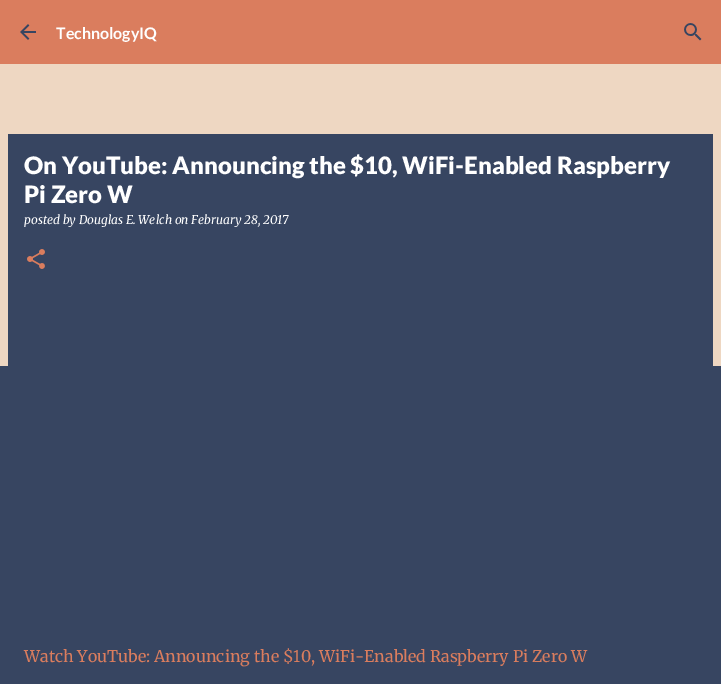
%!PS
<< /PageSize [721 684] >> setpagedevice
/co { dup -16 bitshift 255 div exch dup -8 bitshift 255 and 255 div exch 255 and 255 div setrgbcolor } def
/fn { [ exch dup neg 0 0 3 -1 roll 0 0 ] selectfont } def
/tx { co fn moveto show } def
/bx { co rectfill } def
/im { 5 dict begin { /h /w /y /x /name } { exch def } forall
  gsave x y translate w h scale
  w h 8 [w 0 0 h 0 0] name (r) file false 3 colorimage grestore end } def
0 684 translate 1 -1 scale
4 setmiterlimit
0 0 721 684 16#EED7C2 bx
0 0 721 64 16#DA7D5E bx
(media/1.raw) 20 24 16 16 im
(media/2.raw) 684 23 18 18 im
0 366 721 318 16#374561 bx
8 134 705 232 16#374561 bx
(media/3.raw) 27 249 18 20 im
(TechnologyIQ) 56 39 /Lato-Bold 16 16#FFFFFF tx
(On YouTube: Announcing the $10, WiFi-Enabled Raspberry) 24 174 /Lato-Black 24 16#FFFFFF tx
(Pi Zero W) 24 203 /Lato-Black 24 16#FFFFFF tx
(posted by Douglas E. Welch on February 28, 2017) 24 224 /Merriweather-Italic 12 16#FFFFFF tx
(Watch YouTube: Announcing the $10, WiFi-Enabled Raspberry Pi Zero W) 24 662 /Merriweather-Light 16 16#DA7D5E tx
showpage
